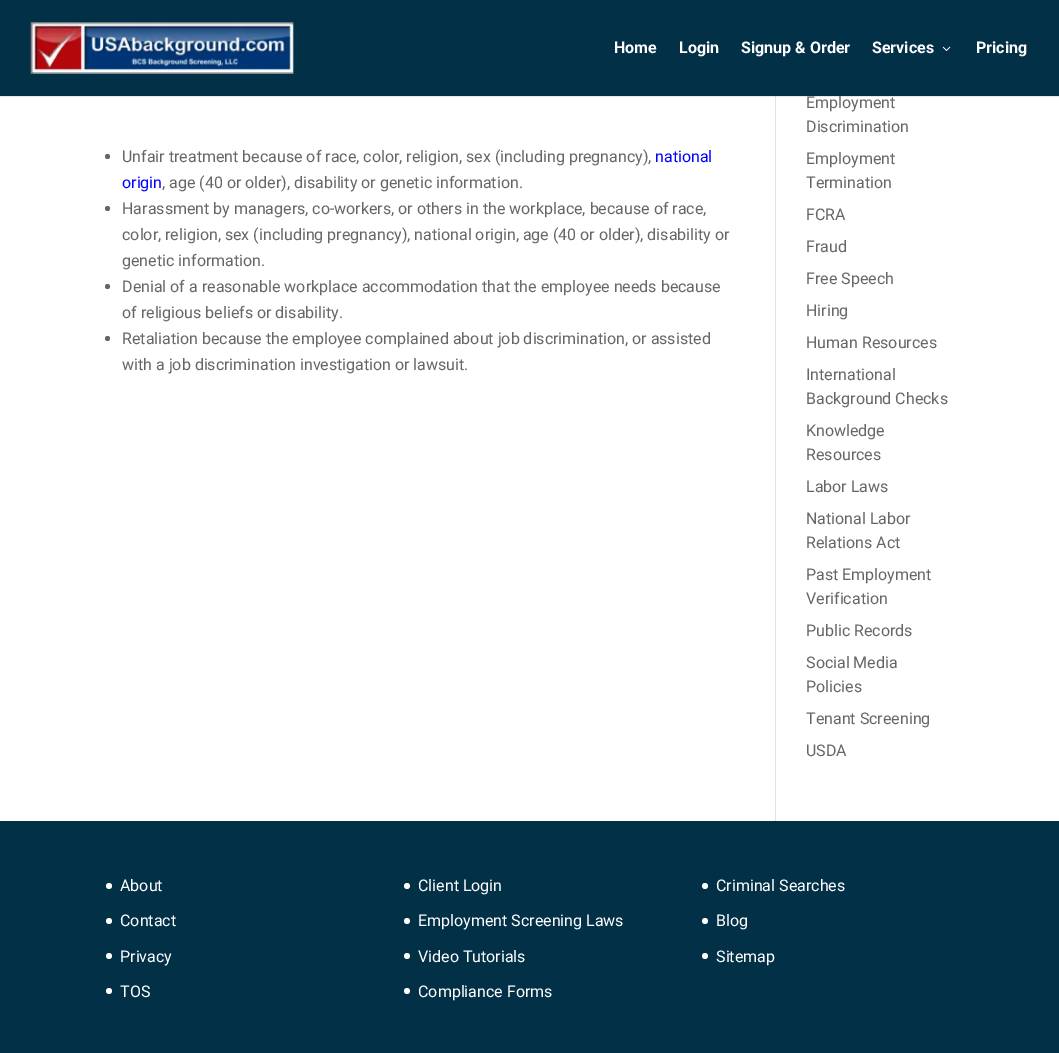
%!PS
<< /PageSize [1059 1053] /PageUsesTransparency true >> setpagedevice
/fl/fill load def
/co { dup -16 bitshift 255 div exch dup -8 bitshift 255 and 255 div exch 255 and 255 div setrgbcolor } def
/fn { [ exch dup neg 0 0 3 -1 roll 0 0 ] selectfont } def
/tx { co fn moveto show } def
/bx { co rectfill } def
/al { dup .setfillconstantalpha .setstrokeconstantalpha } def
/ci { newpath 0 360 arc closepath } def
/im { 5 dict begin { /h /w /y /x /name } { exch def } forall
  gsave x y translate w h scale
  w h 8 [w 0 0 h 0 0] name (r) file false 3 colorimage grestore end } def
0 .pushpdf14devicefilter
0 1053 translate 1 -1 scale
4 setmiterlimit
0 0 1059 1053 16#FFFFFF bx
775 96 1 725 16#E2E2E2 bx
0.1 al
0 96 1059 1 16#000000 bx
1 al
0 0 1059 96 16#023047 bx
(media/1.raw) 30 22 264 52 im
(media/2.raw) 942 46 9 5 im
16#666666 co
107.5 156.5 2.5 ci fl
107.5 208.5 2.5 ci fl
107.5 286.5 2.5 ci fl
107.5 338.5 2.5 ci fl
0 821 1059 232 16#023047 bx
16#FFFFFF co
109 886 3 ci fl
109 921 3 ci fl
109 956 3 ci fl
109 991 3 ci fl
407 886 3 ci fl
407 921 3 ci fl
407 956 3 ci fl
407 991 3 ci fl
705 886 3 ci fl
705 921 3 ci fl
705 956 3 ci fl
(Home) 614 53 /Roboto-Bold 16 16#FFFFFF tx
(Login) 679 53 /Roboto-Bold 16 16#FFFFFF tx
(Signup & Order) 741 53 /Roboto-Bold 16 16#FFFFFF tx
(Services) 872 53 /Roboto-Bold 16 16#FFFFFF tx
(Pricing) 976 53 /Roboto-Bold 16 16#FFFFFF tx
(Unfair treatment because of race, color, religion, sex \(including pregnancy\),) 122 162 /Roboto-Regular 16 16#666666 tx
(national) 655 162 /Roboto-Regular 16 16#0000FF tx
(origin) 122 188 /Roboto-Regular 16 16#0000FF tx
(, age \(40 or older\), disability or genetic information.) 162 188 /Roboto-Regular 16 16#666666 tx
(Harassment by managers, co-workers, or others in the workplace, because of race,) 122 214 /Roboto-Regular 16 16#666666 tx
(color, religion, sex \(including pregnancy\), national origin, age \(40 or older\), disability or) 122 240 /Roboto-Regular 16 16#666666 tx
(genetic information.) 122 266 /Roboto-Regular 16 16#666666 tx
(Denial of a reasonable workplace accommodation that the employee needs because) 122 292 /Roboto-Regular 16 16#666666 tx
(of religious beliefs or disability.) 122 318 /Roboto-Regular 16 16#666666 tx
(Retaliation because the employee complained about job discrimination, or assisted) 122 344 /Roboto-Regular 16 16#666666 tx
(with a job discrimination investigation or lawsuit.) 122 370 /Roboto-Regular 16 16#666666 tx
(Employment) 806 108 /Roboto-Regular 16 16#666666 tx
(Discrimination) 806 132 /Roboto-Regular 16 16#666666 tx
(Employment) 806 164 /Roboto-Regular 16 16#666666 tx
(Termination) 806 188 /Roboto-Regular 16 16#666666 tx
(FCRA) 806 220 /Roboto-Regular 16 16#666666 tx
(Fraud) 806 252 /Roboto-Regular 16 16#666666 tx
(Free Speech) 806 284 /Roboto-Regular 16 16#666666 tx
(Hiring) 806 316 /Roboto-Regular 16 16#666666 tx
(Human Resources) 806 348 /Roboto-Regular 16 16#666666 tx
(International) 806 380 /Roboto-Regular 16 16#666666 tx
(Background Checks) 806 404 /Roboto-Regular 16 16#666666 tx
(Knowledge) 806 436 /Roboto-Regular 16 16#666666 tx
(Resources) 806 460 /Roboto-Regular 16 16#666666 tx
(Labor Laws) 806 492 /Roboto-Regular 16 16#666666 tx
(National Labor) 806 524 /Roboto-Regular 16 16#666666 tx
(Relations Act) 806 548 /Roboto-Regular 16 16#666666 tx
(Past Employment) 806 580 /Roboto-Regular 16 16#666666 tx
(Verification) 806 604 /Roboto-Regular 16 16#666666 tx
(Public Records) 806 636 /Roboto-Regular 16 16#666666 tx
(Social Media) 806 668 /Roboto-Regular 16 16#666666 tx
(Policies) 806 692 /Roboto-Regular 16 16#666666 tx
(Tenant Screening) 806 724 /Roboto-Regular 16 16#666666 tx
(USDA) 806 756 /Roboto-Regular 16 16#666666 tx
(About) 120 891 /Roboto-Regular 16 16#FFFFFF tx
(Contact) 120 926 /Roboto-Regular 16 16#FFFFFF tx
(Privacy) 120 962 /Roboto-Regular 16 16#FFFFFF tx
(TOS) 120 997 /Roboto-Regular 16 16#FFFFFF tx
(Client Login) 418 891 /Roboto-Regular 16 16#FFFFFF tx
(Employment Screening Laws) 418 926 /Roboto-Regular 16 16#FFFFFF tx
(Video Tutorials) 418 962 /Roboto-Regular 16 16#FFFFFF tx
(Compliance Forms) 418 997 /Roboto-Regular 16 16#FFFFFF tx
(Criminal Searches) 716 891 /Roboto-Regular 16 16#FFFFFF tx
(Blog) 716 926 /Roboto-Regular 16 16#FFFFFF tx
(Sitemap) 716 962 /Roboto-Regular 16 16#FFFFFF tx
.poppdf14devicefilter showpage
